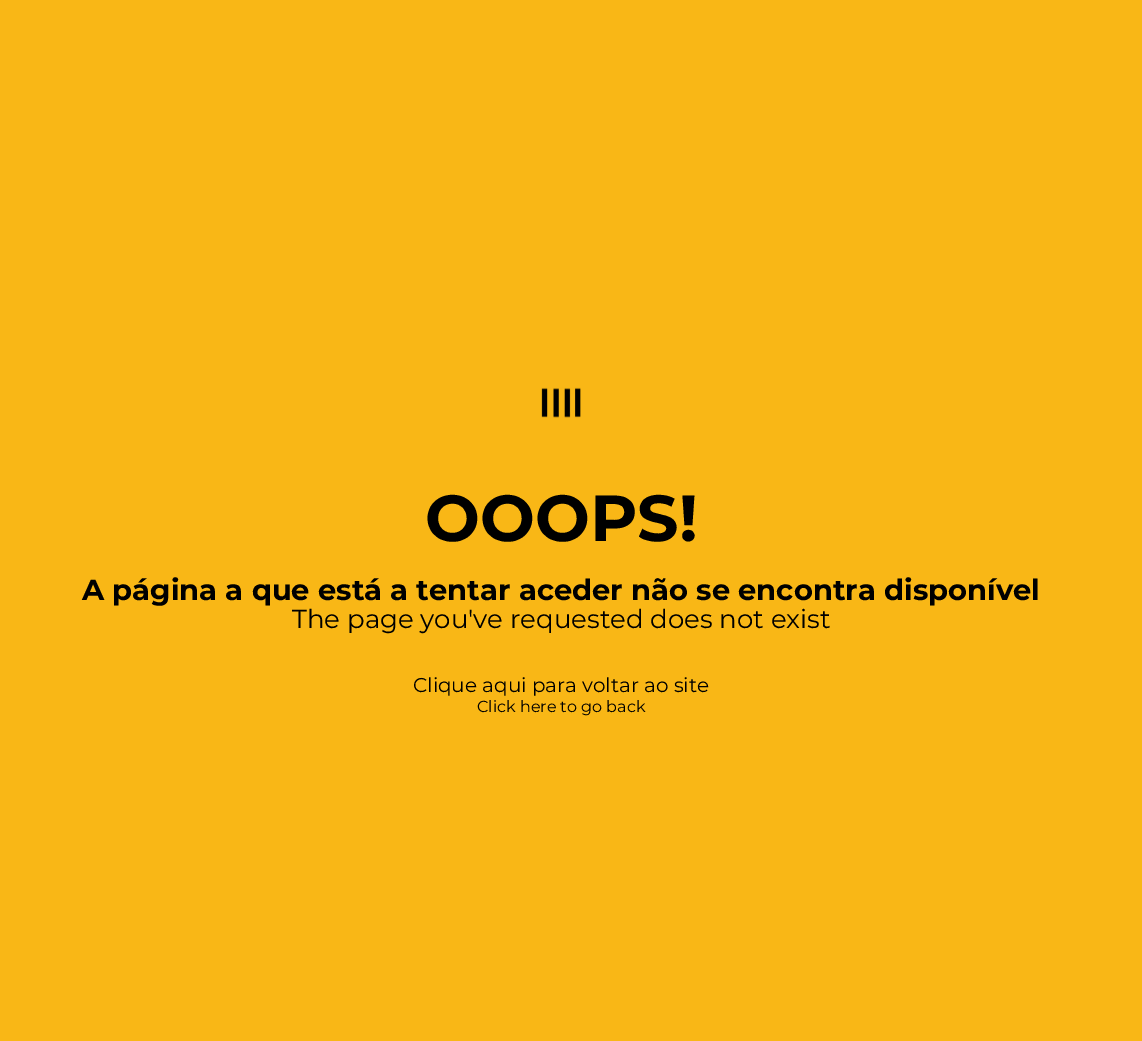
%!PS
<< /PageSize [1142 1041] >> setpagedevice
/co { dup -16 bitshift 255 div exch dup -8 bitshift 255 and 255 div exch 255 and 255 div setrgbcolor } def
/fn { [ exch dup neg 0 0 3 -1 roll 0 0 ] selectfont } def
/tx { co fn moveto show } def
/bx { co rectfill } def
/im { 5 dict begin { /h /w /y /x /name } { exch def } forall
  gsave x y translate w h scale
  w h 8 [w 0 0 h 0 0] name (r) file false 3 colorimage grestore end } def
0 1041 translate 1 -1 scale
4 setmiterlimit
0 0 1142 1041 16#F9B716 bx
(media/1.raw) 541 387 40 31 im
(OOOPS!) 425 541 /Montserrat-Bold 65 16#000000 tx
(A página a que está a tentar aceder não se encontra disponível) 82 600 /Montserrat-Bold 29 16#000000 tx
(The page you've requested does not exist) 292 628 /Montserrat-Regular 26 16#000000 tx
(Clique aqui para voltar ao site) 413 692 /Montserrat-Regular 20 16#000000 tx
(Click here to go back) 477 712 /Montserrat-Regular 16 16#000000 tx
showpage
